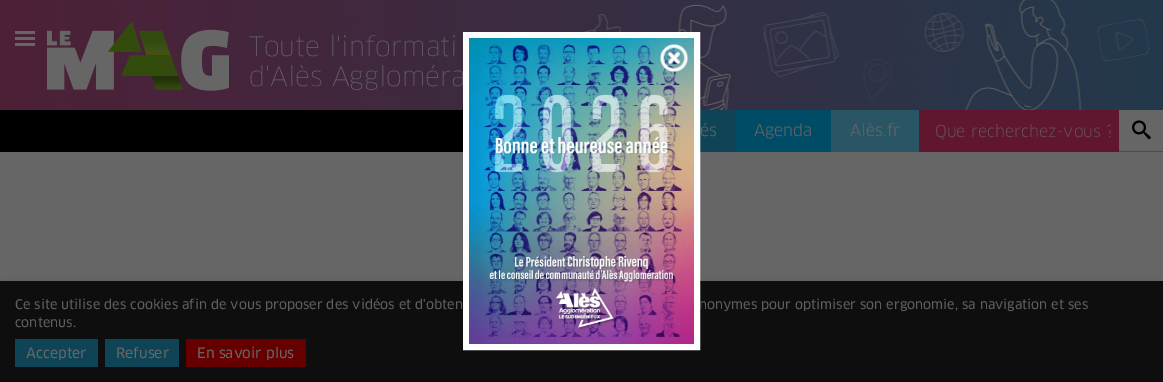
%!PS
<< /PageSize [1163 382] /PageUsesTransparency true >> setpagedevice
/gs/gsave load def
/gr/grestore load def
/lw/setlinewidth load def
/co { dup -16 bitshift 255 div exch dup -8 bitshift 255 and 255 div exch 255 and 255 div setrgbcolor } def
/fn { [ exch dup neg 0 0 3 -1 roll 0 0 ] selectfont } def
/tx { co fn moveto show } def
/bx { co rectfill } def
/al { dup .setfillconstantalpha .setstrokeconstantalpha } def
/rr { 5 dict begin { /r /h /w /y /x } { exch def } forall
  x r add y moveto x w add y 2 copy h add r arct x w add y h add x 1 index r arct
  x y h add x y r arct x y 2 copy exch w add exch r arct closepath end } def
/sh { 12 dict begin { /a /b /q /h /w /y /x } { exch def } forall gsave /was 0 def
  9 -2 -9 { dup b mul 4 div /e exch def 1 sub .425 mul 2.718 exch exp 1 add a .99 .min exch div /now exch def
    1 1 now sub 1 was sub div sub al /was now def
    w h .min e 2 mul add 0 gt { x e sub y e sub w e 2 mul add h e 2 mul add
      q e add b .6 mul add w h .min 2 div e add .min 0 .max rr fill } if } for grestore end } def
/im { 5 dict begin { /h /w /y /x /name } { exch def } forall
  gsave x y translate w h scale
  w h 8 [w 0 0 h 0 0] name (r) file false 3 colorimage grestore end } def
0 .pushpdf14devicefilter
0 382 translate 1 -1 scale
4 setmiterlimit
0 0 1163 382 16#666666 bx
(media/3.raw) 0 0 1163 110 im
15 31 20 3 16#666666 bx
15 37 20 3 16#666666 bx
15 43 20 3 16#666666 bx
(media/4.raw) 47 21 182 70 im
0 110 463 42 16#000000 bx
700 110 35 42 16#0E4456 bx
735 110 96 42 16#004C66 bx
831 110 88 42 16#2A5564 bx
919 110 200 42 16#5F162E bx
1119 151 44 1 16#4C4C4C bx
(media/5.raw) 1132 120 19 20 im
16#000000 co
5 286 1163 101 0 5 .19 sh
0 281 1163 101 16#0E0E0E bx
15 339 83 28 16#0E4456 bx
105 339 74 28 16#0E4456 bx
186 339 120 28 16#660000 bx
(Toute l'informati) 249 56 /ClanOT-Thin 26 16#666666 tx
(d'Alès Aggloméra) 249 86 /ClanOT-Thin 26 16#666666 tx
16#FFFFFF co
6 lw
466 35 231 312 rectstroke
(media/1.raw) 469 38 225 306 im
(media/2.raw) 660 44 29 29 im
(és) 700 136 /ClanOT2-Regular 16 16#666666 tx
(Agenda) 754 136 /ClanOT2-Regular 16 16#666666 tx
(Alès.fr) 850 136 /ClanOT2-Regular 16 16#666666 tx
gs
935 121 176 21 rectclip
(Que recherchez-vous ?) 935 137 /ClanOT2-Regular 16 16#644E55 tx
gr
(Ce site utilise des cookies afin de vous proposer des vidéos et d'obten) 15 309 /ClanOT-Regular 13 16#5F5F5F tx
(nonymes pour optimiser son ergonomie, sa navigation et ses) 699 309 /ClanOT-Regular 13 16#5F5F5F tx
(contenus.) 15 327 /ClanOT-Regular 13 16#5F5F5F tx
(Accepter) 26 358 /ClanOT-Regular 14 16#666666 tx
(Refuser) 116 358 /ClanOT-Regular 14 16#666666 tx
(En savoir plus) 197 358 /ClanOT-Regular 14 16#666666 tx
.poppdf14devicefilter showpage
